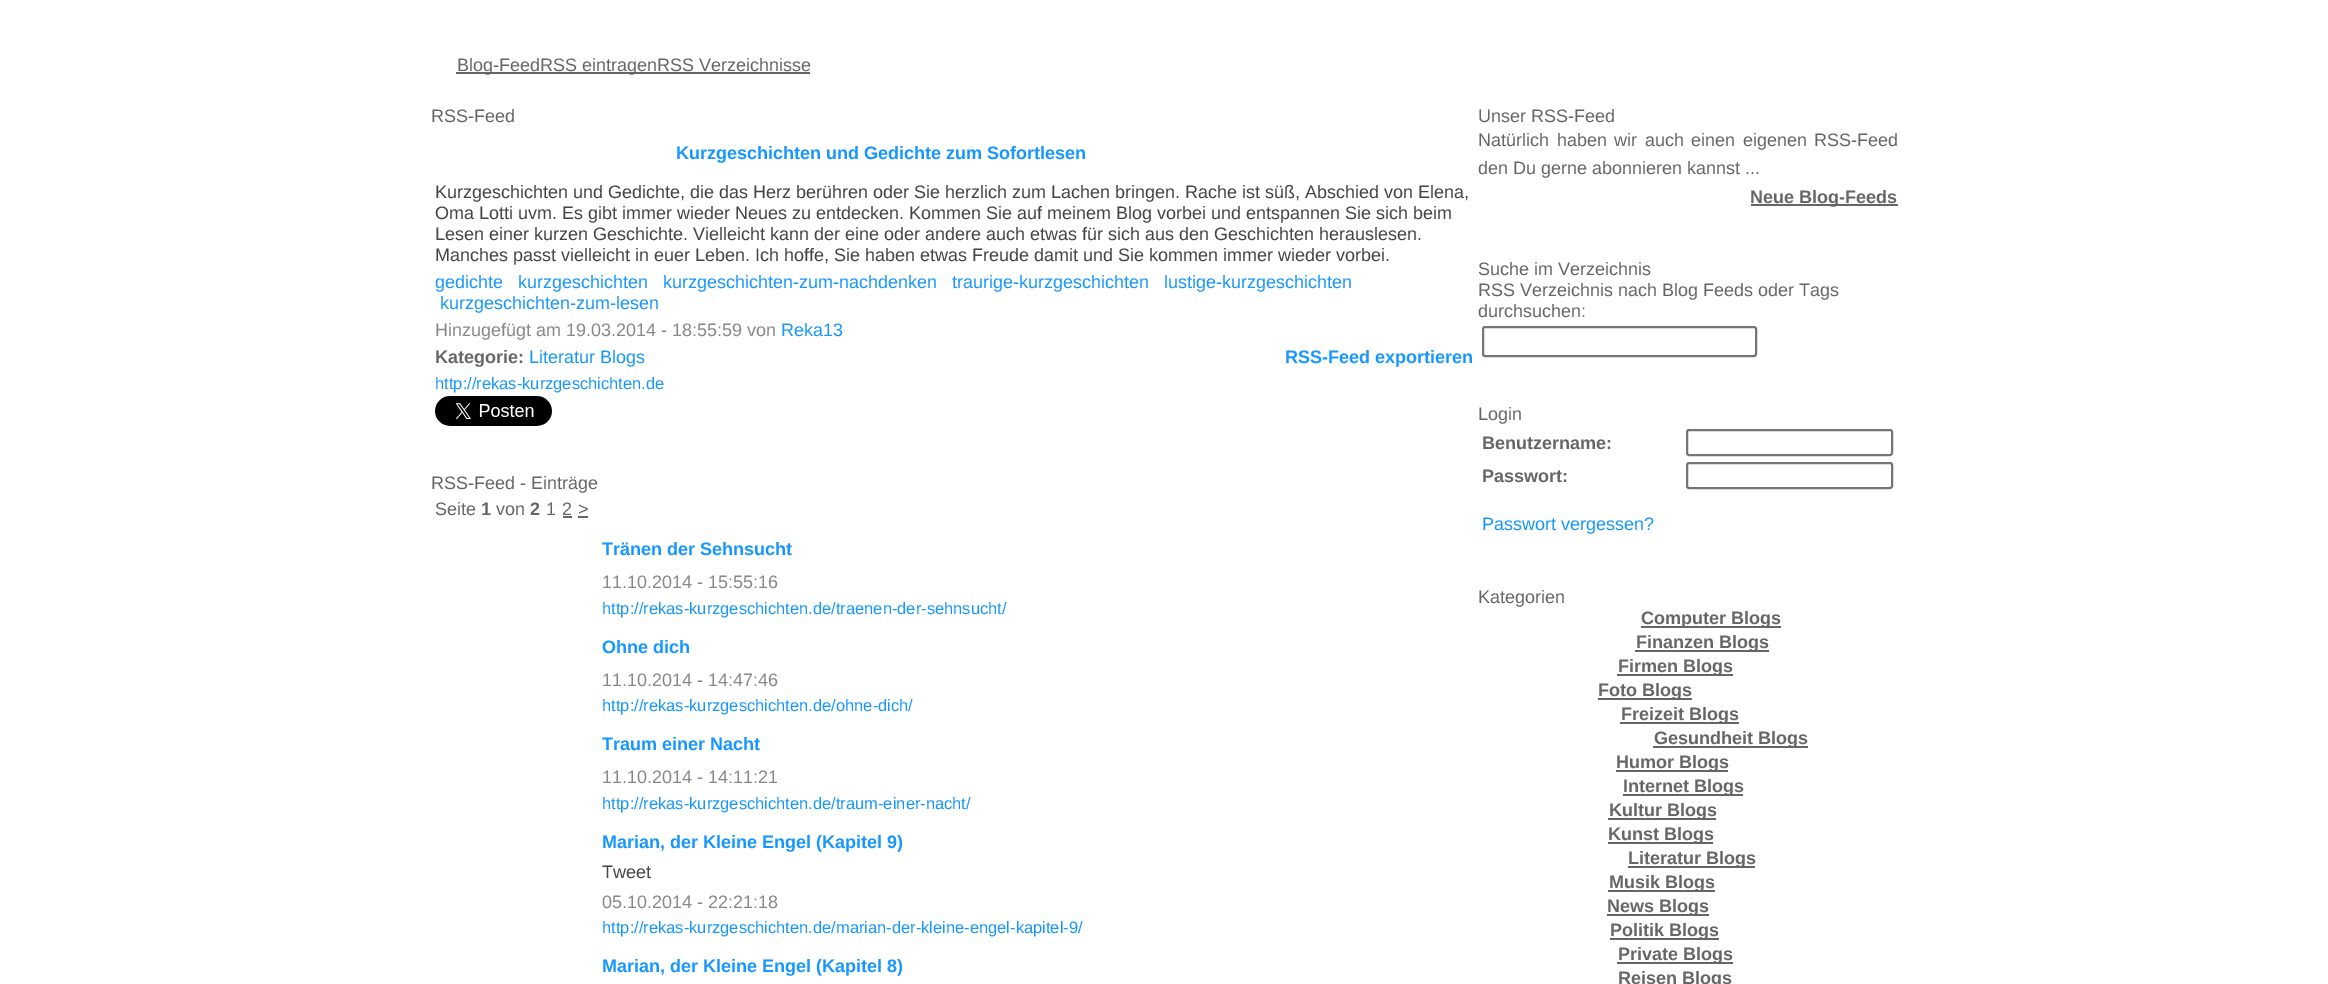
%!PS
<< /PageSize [2328 984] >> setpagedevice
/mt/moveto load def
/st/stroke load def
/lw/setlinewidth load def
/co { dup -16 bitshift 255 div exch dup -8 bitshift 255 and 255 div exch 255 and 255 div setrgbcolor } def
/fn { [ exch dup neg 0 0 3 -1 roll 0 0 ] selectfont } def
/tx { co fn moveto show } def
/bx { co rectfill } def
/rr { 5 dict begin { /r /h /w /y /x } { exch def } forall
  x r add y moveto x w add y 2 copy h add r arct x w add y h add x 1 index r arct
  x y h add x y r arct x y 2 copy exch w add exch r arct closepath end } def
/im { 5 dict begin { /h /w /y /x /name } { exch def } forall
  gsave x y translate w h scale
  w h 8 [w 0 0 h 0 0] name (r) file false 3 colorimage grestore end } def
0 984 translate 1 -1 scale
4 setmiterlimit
0 0 2328 984 16#FFFFFF bx
456 72 354 2 16#666666 bx
(media/1.raw) 435 396 117 30 im
563 516 9 2 16#666666 bx
578 516 10 2 16#666666 bx
1751 204 147 2 16#666666 bx
16#767676 co
2 lw
1483 327 273 29 2 rr st
1687 430 205 25 2 rr st
1687 463 205 25 2 rr st
1641 626 140 2 16#666666 bx
1635 650 134 2 16#666666 bx
1617 674 116 2 16#666666 bx
1598 698 94 2 16#666666 bx
1620 722 119 2 16#666666 bx
1653 746 155 2 16#666666 bx
1616 770 112 2 16#666666 bx
1623 794 120 2 16#666666 bx
1608 818 108 2 16#666666 bx
1608 842 105 2 16#666666 bx
1628 866 127 2 16#666666 bx
1608 890 107 2 16#666666 bx
1607 914 102 2 16#666666 bx
1610 938 109 2 16#666666 bx
1617 962 116 2 16#666666 bx
(Blog-FeedRSS eintragenRSS Verzeichnisse) 457 71 /LiberationSans-Regular 18 16#666666 tx
(RSS-Feed) 431 122 /LiberationSans-Regular 18 16#666666 tx
(Kurzgeschichten und Gedichte zum Sofortlesen) 676 159 /LiberationSans-Bold 18 16#1597FF tx
(Kurzgeschichten und Gedichte, die das Herz berühren oder Sie herzlich zum Lachen bringen. Rache ist süß, Abschied von Elena,) 435 198 /LiberationSans-Regular 18 16#444444 tx
(Oma Lotti uvm. Es gibt immer wieder Neues zu entdecken. Kommen Sie auf meinem Blog vorbei und entspannen Sie sich beim) 435 219 /LiberationSans-Regular 18 16#444444 tx
(Lesen einer kurzen Geschichte. Vielleicht kann der eine oder andere auch etwas für sich aus den Geschichten herauslesen.) 435 240 /LiberationSans-Regular 18 16#444444 tx
(Manches passt vielleicht in euer Leben. Ich hoffe, Sie haben etwas Freude damit und Sie kommen immer wieder vorbei.) 435 261 /LiberationSans-Regular 18 16#444444 tx
(gedichte) 435 288 /LiberationSans-Regular 18 16#1597FF tx
(kurzgeschichten) 518 288 /LiberationSans-Regular 18 16#1597FF tx
(kurzgeschichten-zum-nachdenken) 663 288 /LiberationSans-Regular 18 16#1597FF tx
(traurige-kurzgeschichten) 952 288 /LiberationSans-Regular 18 16#1597FF tx
(lustige-kurzgeschichten) 1164 288 /LiberationSans-Regular 18 16#1597FF tx
(kurzgeschichten-zum-lesen) 440 309 /LiberationSans-Regular 18 16#1597FF tx
(Hinzugefügt am 19.03.2014 - 18:55:59 von) 435 336 /LiberationSans-Regular 18 16#888888 tx
(Reka13) 781 336 /LiberationSans-Regular 18 16#1597FF tx
(Kategorie:) 435 363 /LiberationSans-Bold 18 16#666666 tx
(Literatur Blogs) 529 363 /LiberationSans-Regular 18 16#1597FF tx
(RSS-Feed exportieren) 1285 363 /LiberationSans-Bold 18 16#1597FF tx
(http://rekas-kurzgeschichten.de) 435 389 /LiberationSans-Regular 16.5 16#1597FF tx
(RSS-Feed - Einträge) 431 489 /LiberationSans-Regular 18 16#666666 tx
(Seite) 435 515 /LiberationSans-Regular 18 16#666666 tx
(1) 481 515 /LiberationSans-Bold 18 16#666666 tx
(von) 496 515 /LiberationSans-Regular 18 16#666666 tx
(2) 530 515 /LiberationSans-Bold 18 16#666666 tx
(1) 546 515 /LiberationSans-Regular 18 16#666666 tx
(2) 562 515 /LiberationSans-Regular 18 16#666666 tx
(>) 578 515 /LiberationSans-Regular 18 16#666666 tx
(Tränen der Sehnsucht) 602 555 /LiberationSans-Bold 18 16#1597FF tx
(11.10.2014 - 15:55:16) 602 588 /LiberationSans-Regular 18 16#888888 tx
(http://rekas-kurzgeschichten.de/traenen-der-sehnsucht/) 602 614 /LiberationSans-Regular 16.5 16#1597FF tx
(Ohne dich) 602 653 /LiberationSans-Bold 18 16#1597FF tx
(11.10.2014 - 14:47:46) 602 686 /LiberationSans-Regular 18 16#888888 tx
(http://rekas-kurzgeschichten.de/ohne-dich/) 602 711 /LiberationSans-Regular 16.5 16#1597FF tx
(Traum einer Nacht) 602 750 /LiberationSans-Bold 18 16#1597FF tx
(11.10.2014 - 14:11:21) 602 783 /LiberationSans-Regular 18 16#888888 tx
(http://rekas-kurzgeschichten.de/traum-einer-nacht/) 602 809 /LiberationSans-Regular 16.5 16#1597FF tx
(Marian, der Kleine Engel \(Kapitel 9\)) 602 848 /LiberationSans-Bold 18 16#1597FF tx
(Tweet) 602 878 /LiberationSans-Regular 18 16#444444 tx
(05.10.2014 - 22:21:18) 602 908 /LiberationSans-Regular 18 16#888888 tx
(http://rekas-kurzgeschichten.de/marian-der-kleine-engel-kapitel-9/) 602 933 /LiberationSans-Regular 16.5 16#1597FF tx
(Marian, der Kleine Engel \(Kapitel 8\)) 602 972 /LiberationSans-Bold 18 16#1597FF tx
(Unser RSS-Feed) 1478 122 /LiberationSans-Regular 18 16#666666 tx
1478 146 mt 2.5 0 32 (Natürlich haben wir auch einen eigenen RSS-Feed) widthshow
(den Du gerne abonnieren kannst ...) 1478 174 /LiberationSans-Regular 18 16#666666 tx
(Neue Blog-Feeds) 1750 203 /LiberationSans-Bold 18 16#666666 tx
(Suche im Verzeichnis) 1478 275 /LiberationSans-Regular 18 16#666666 tx
(RSS Verzeichnis nach Blog Feeds oder Tags) 1478 296 /LiberationSans-Regular 18 16#666666 tx
(durchsuchen:) 1478 317 /LiberationSans-Regular 18 16#666666 tx
(Login) 1478 420 /LiberationSans-Regular 18 16#666666 tx
(Benutzername:) 1482 449 /LiberationSans-Bold 18 16#666666 tx
(Passwort:) 1482 482 /LiberationSans-Bold 18 16#666666 tx
(Passwort vergessen?) 1482 530 /LiberationSans-Regular 18 16#1597FF tx
(Kategorien) 1478 603 /LiberationSans-Regular 18 16#666666 tx
(Computer Blogs) 1641 624 /LiberationSans-Bold 18 16#666666 tx
(Finanzen Blogs) 1636 648 /LiberationSans-Bold 18 16#666666 tx
(Firmen Blogs) 1618 672 /LiberationSans-Bold 18 16#666666 tx
(Foto Blogs) 1598 696 /LiberationSans-Bold 18 16#666666 tx
(Freizeit Blogs) 1621 720 /LiberationSans-Bold 18 16#666666 tx
(Gesundheit Blogs) 1654 744 /LiberationSans-Bold 18 16#666666 tx
(Humor Blogs) 1616 768 /LiberationSans-Bold 18 16#666666 tx
(Internet Blogs) 1623 792 /LiberationSans-Bold 18 16#666666 tx
(Kultur Blogs) 1609 816 /LiberationSans-Bold 18 16#666666 tx
(Kunst Blogs) 1608 840 /LiberationSans-Bold 18 16#666666 tx
(Literatur Blogs) 1628 864 /LiberationSans-Bold 18 16#666666 tx
(Musik Blogs) 1609 888 /LiberationSans-Bold 18 16#666666 tx
(News Blogs) 1607 912 /LiberationSans-Bold 18 16#666666 tx
(Politik Blogs) 1610 936 /LiberationSans-Bold 18 16#666666 tx
(Private Blogs) 1618 960 /LiberationSans-Bold 18 16#666666 tx
(Reisen Blogs) 1618 984 /LiberationSans-Bold 18 16#666666 tx
showpage
